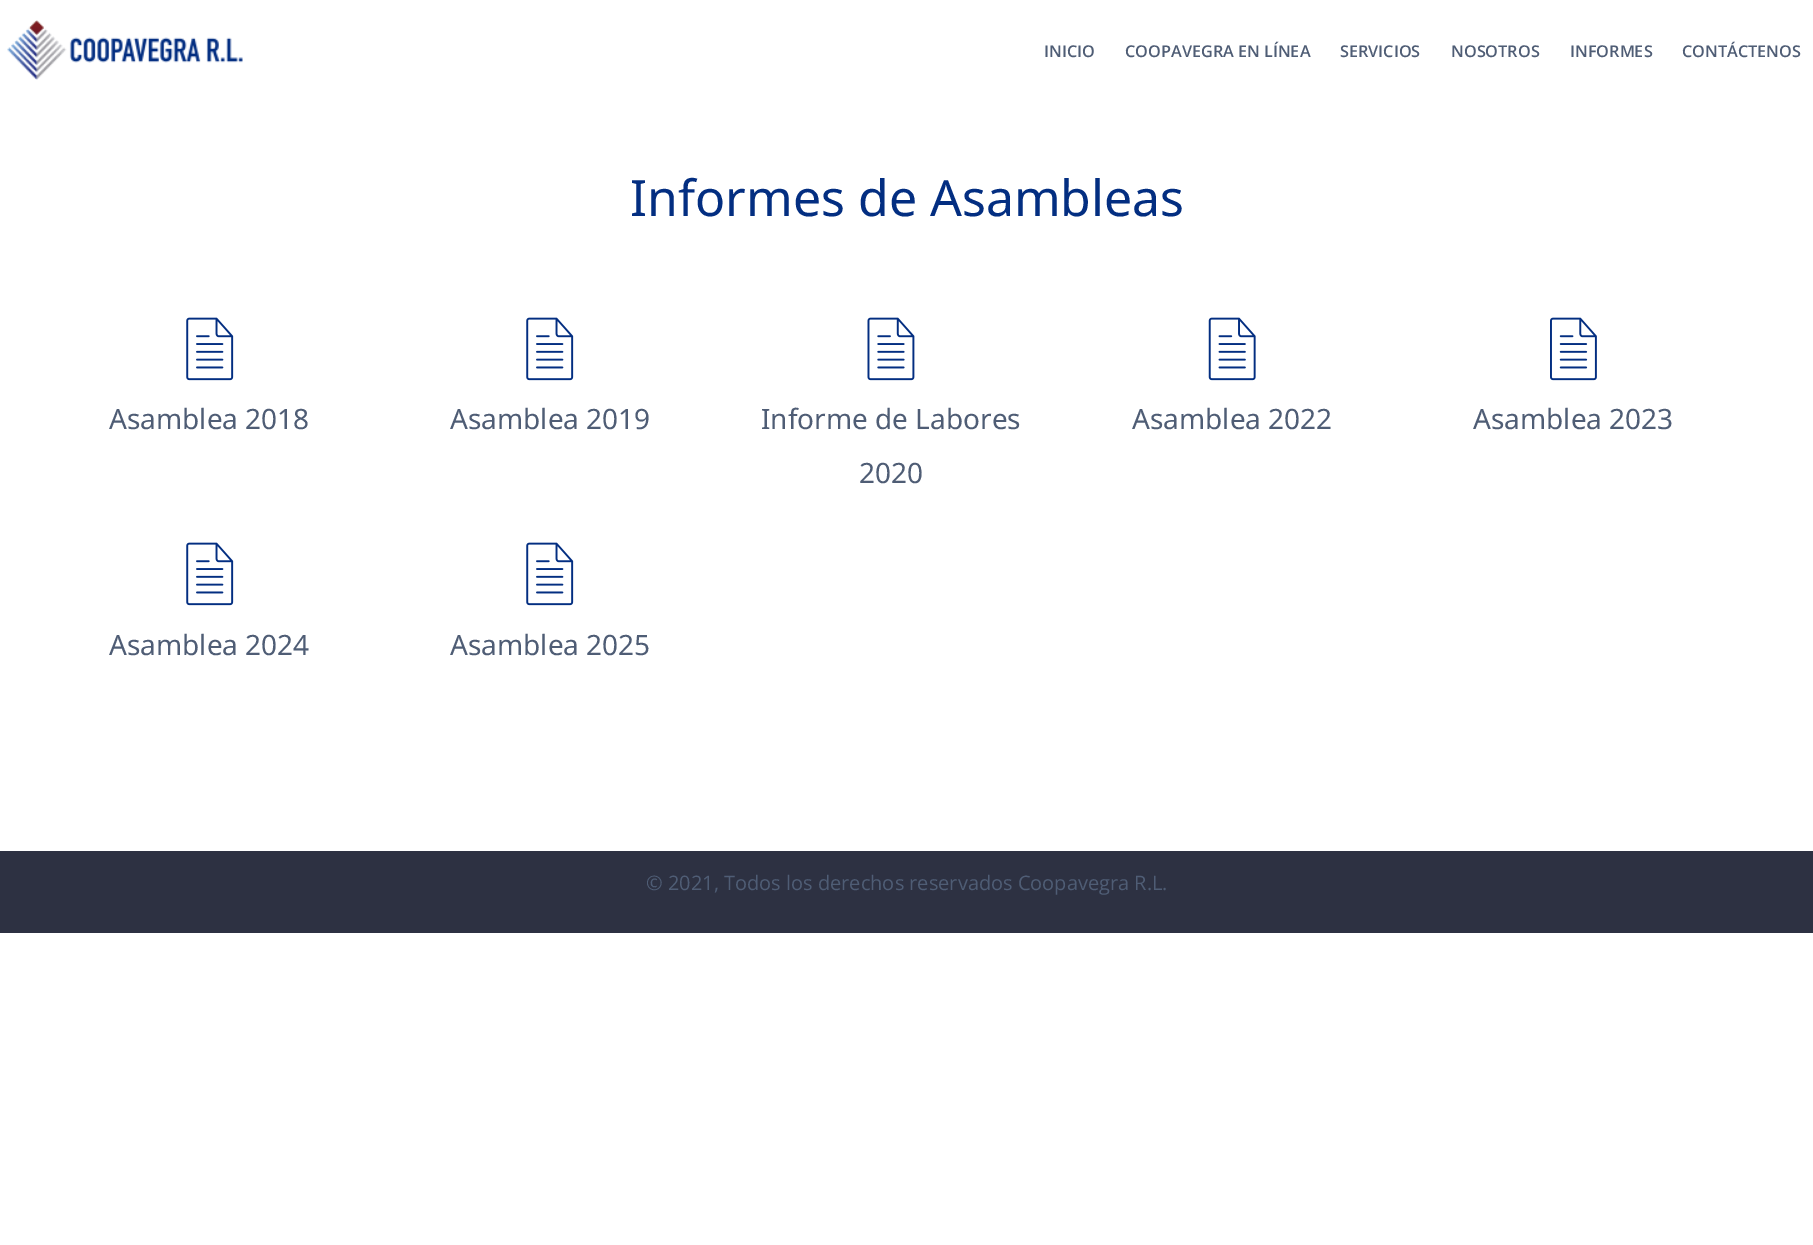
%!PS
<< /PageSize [1813 1245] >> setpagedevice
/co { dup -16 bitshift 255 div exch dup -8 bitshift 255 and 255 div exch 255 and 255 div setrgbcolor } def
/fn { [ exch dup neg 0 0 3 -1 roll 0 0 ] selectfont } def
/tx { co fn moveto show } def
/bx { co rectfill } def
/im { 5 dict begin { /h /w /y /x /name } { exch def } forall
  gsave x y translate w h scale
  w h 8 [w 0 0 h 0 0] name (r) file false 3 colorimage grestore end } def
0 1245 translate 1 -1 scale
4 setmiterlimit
0 0 1813 1245 16#FFFFFF bx
(media/1.raw) 7 20 236 60 im
(media/2.raw) 186 317 48 64 im
(media/2.raw) 526 317 48 64 im
(media/3.raw) 867 317 48 64 im
(media/4.raw) 1208 317 48 64 im
(media/5.raw) 1550 317 47 64 im
(media/2.raw) 186 542 48 64 im
(media/2.raw) 526 542 48 64 im
0 851 1813 82 16#2D3142 bx
(INICIO) 1044 57 /OpenSans-SemiBold 16.25 16#4F5D75 tx
(COOPAVEGRA EN LÍNEA) 1125 57 /OpenSans-SemiBold 16.25 16#4F5D75 tx
(SERVICIOS) 1340 57 /OpenSans-SemiBold 16.25 16#4F5D75 tx
(NOSOTROS) 1451 57 /OpenSans-SemiBold 16.25 16#4F5D75 tx
(INFORMES) 1570 57 /OpenSans-SemiBold 16.25 16#4F5D75 tx
(CONTÁCTENOS) 1682 57 /OpenSans-SemiBold 16.25 16#4F5D75 tx
(Informes de Asambleas) 630 216 /NotoSans-Regular 50 16#032E81 tx
(Asamblea 2018) 109 429 /NotoSans-Regular 28 16#4F5D75 tx
(Asamblea 2019) 450 429 /NotoSans-Regular 28 16#4F5D75 tx
(Informe de Labores) 761 429 /NotoSans-Regular 28 16#4F5D75 tx
(2020) 859 483 /NotoSans-Regular 28 16#4F5D75 tx
(Asamblea 2022) 1132 429 /NotoSans-Regular 28 16#4F5D75 tx
(Asamblea 2023) 1473 429 /NotoSans-Regular 28 16#4F5D75 tx
(Asamblea 2024) 109 655 /NotoSans-Regular 28 16#4F5D75 tx
(Asamblea 2025) 450 655 /NotoSans-Regular 28 16#4F5D75 tx
(© 2021, Todos los derechos reservados Coopavegra R.L.) 646 890 /OpenSans-Regular 20 16#4F5D75 tx
showpage
